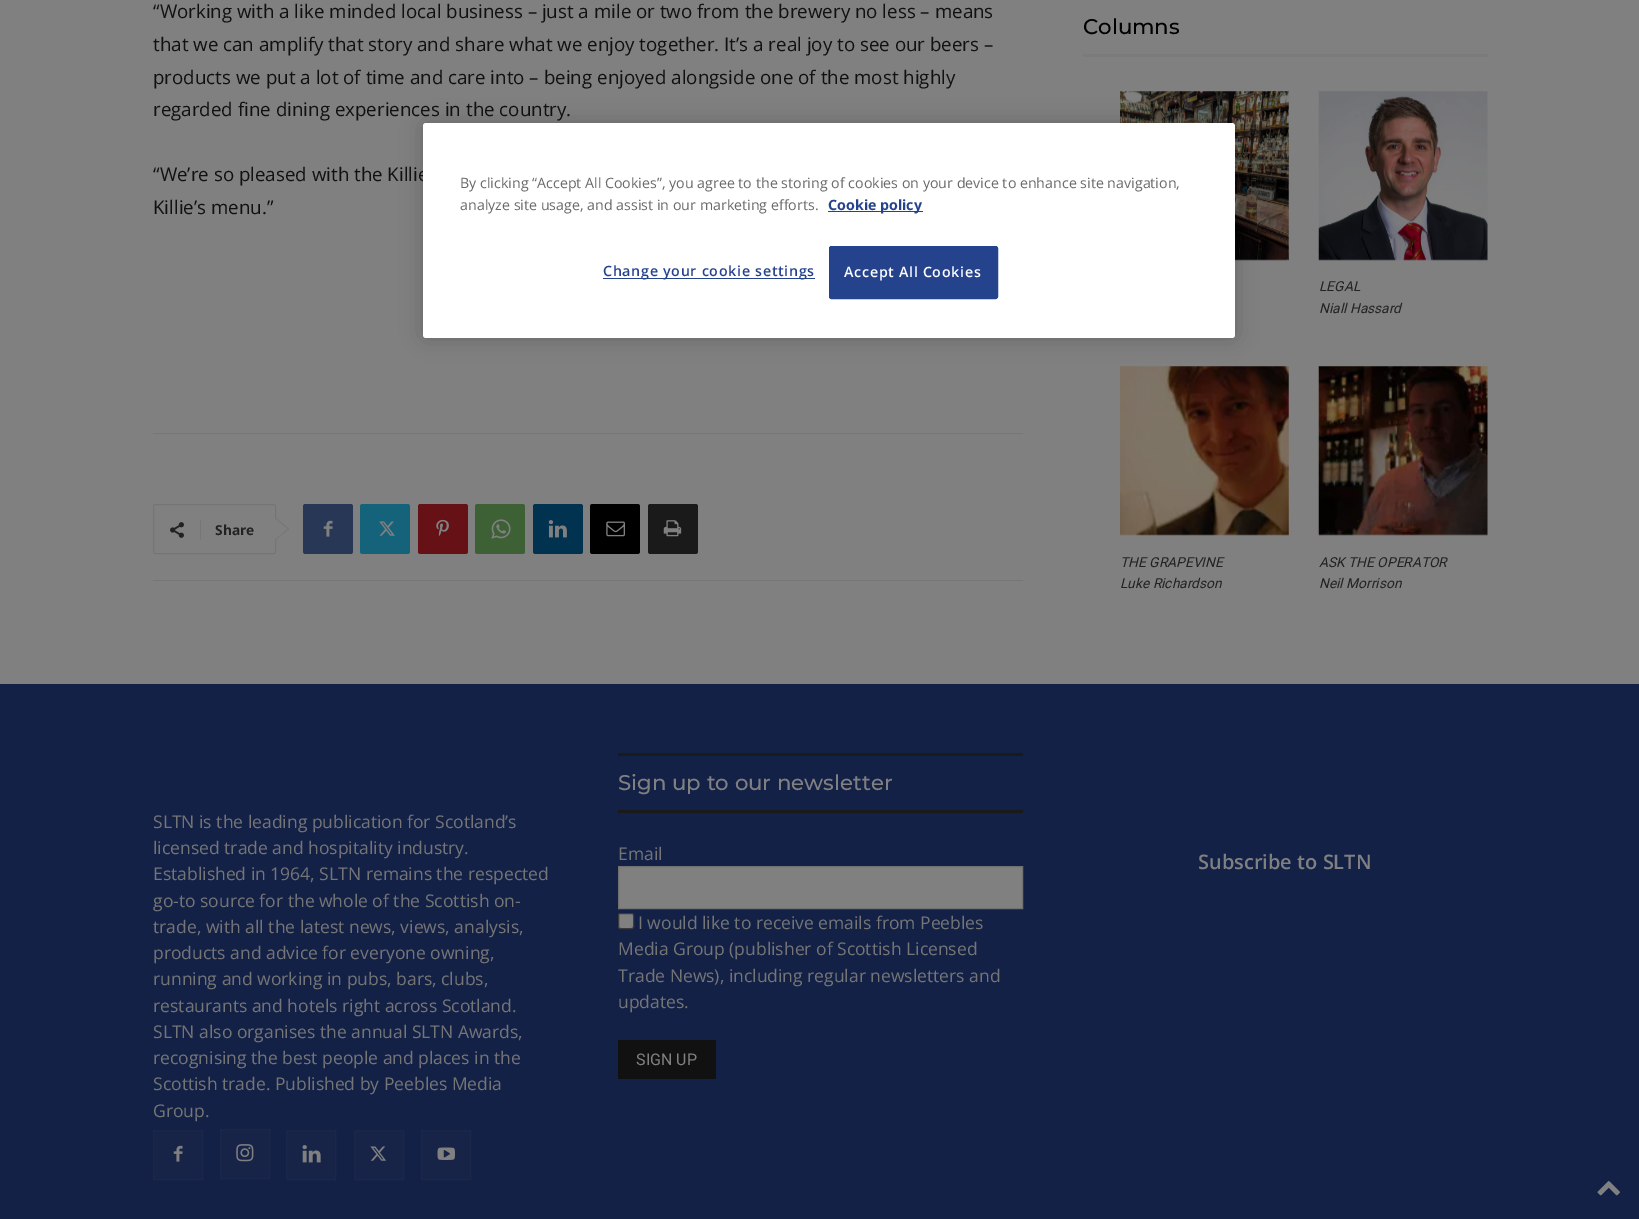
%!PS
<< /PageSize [1639 1219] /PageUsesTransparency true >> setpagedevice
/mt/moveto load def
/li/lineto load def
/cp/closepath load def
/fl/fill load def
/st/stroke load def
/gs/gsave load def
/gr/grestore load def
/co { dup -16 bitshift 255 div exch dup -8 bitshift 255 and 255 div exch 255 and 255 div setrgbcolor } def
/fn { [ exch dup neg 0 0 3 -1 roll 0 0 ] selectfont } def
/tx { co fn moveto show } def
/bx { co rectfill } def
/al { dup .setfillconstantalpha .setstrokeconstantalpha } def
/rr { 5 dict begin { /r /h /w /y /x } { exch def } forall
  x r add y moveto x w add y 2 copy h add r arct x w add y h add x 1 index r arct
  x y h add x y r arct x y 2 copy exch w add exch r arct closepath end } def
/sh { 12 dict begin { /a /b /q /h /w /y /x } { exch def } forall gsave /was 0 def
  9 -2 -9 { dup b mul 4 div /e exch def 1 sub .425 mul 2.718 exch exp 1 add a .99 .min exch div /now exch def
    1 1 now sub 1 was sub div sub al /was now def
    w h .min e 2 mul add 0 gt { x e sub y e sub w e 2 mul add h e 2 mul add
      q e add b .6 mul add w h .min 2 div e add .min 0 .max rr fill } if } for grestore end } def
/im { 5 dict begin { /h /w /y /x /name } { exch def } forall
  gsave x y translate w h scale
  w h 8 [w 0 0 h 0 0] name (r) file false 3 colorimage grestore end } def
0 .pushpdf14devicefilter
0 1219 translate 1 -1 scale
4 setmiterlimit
0 0 1639 1219 16#808080 bx
153 433 870 1 16#777777 bx
153 580 870 1 16#777777 bx
16#757575 co
153.5 504.5 122 49 2 rr st
275 540 mt 275 517.5 li 289 529 li cp fl
(media/1.raw) 170 522 14 16 im
200 520 1 20 16#767676 bx
16#808080 co
275 539 mt 275 519 li 287.5 529 li cp fl
16#293756 co
303 504 50 50 2.5 rr fl
(media/2.raw) 323 520 10 17 im
16#15637B co
360 504 50 50 2.5 rr fl
(media/3.raw) 379 521 16 15 im
16#651115 co
418 504 50 50 2.5 rr fl
(media/4.raw) 436 519 13 17 im
16#3E6035 co
475 504 50 50 2.5 rr fl
(media/5.raw) 491 519 20 20 im
16#013350 co
533 504 50 50 2.5 rr fl
(media/6.raw) 548 520 19 18 im
16#000000 co
590 504 50 50 2.5 rr fl
(media/7.raw) 606 521 19 16 im
16#1A1A1A co
648 504 50 50 2.5 rr fl
(media/8.raw) 663 520 19 17 im
1083 54 405 3 16#7B7B7B bx
(media/9.raw) 1120 91 169 170 im
(media/10.raw) 1318 91 170 170 im
(media/11.raw) 1120 366 169 170 im
(media/12.raw) 1318 366 170 170 im
0 684 1639 535 16#142147 bx
154 1131 48 48 16#172448 bx
(media/13.raw) 173 1145 10 17 im
16#1A274A co
153.5 1130.5 49 49 rectstroke
221 1130 48 48 16#172448 bx
(media/14.raw) 236 1144 18 18 im
16#1A274A co
220.5 1129.5 49 49 rectstroke
287 1131 48 48 16#172448 bx
(media/15.raw) 302 1145 19 18 im
16#1A274A co
286.5 1130.5 49 49 rectstroke
355 1131 48 48 16#172448 bx
(media/16.raw) 370 1146 16 15 im
16#1A274A co
354.5 1130.5 49 49 rectstroke
422 1131 48 48 16#172448 bx
(media/17.raw) 437 1147 18 13 im
16#1A274A co
421.5 1130.5 49 49 rectstroke
618 753 405 3 16#1A1A1A bx
618 810 405 3 16#1A1A1A bx
16#808080 co
618.5 866.5 mt 1022.5 866.5 li 1022.5 908.5 li 618.5 908.5 li cp gs fl gr
16#717171 co
st
16#808080 co
618.5 913.5 15 15 2 rr gs fl gr
16#3B3B3B co
st
618 1040 98 39 16#111111 bx
16#000000 co
423 123 812 215 3 11 .2 sh
(media/18.raw) 1597 1181 23 15 im
(“Working with a like minded local business – just a mile or two from the brewery no less – means) 153 18 /OpenSans-Regular 18.75 16#111111 tx
(that we can amplify that story and share what we enjoy together. It’s a real joy to see our beers –) 153 51 /OpenSans-Regular 18.75 16#111111 tx
(products we put a lot of time and care into – being enjoyed alongside one of the most highly) 153 84 /OpenSans-Regular 18.75 16#111111 tx
(regarded fine dining experiences in the country.) 153 116 /OpenSans-Regular 18.75 16#111111 tx
(“We’re so pleased with the Killie) 153 181 /OpenSans-Regular 18.75 16#111111 tx
(Killie’s menu.”) 153 214 /OpenSans-Regular 18.75 16#111111 tx
(Share) 215 535 /OpenSans-Bold 13.75 16#222222 tx
(Columns) 1083 34 /Montserrat-Medium 21.25 16#000000 tx
(LEGAL) 1319 291 /Roboto-Italic 13.75 16#222222 tx
(Niall Hassard) 1319 313 /Roboto-Italic 13.75 16#222222 tx
(THE GRAPEVINE) 1120 567 /Roboto-Italic 13.75 16#222222 tx
(Luke Richardson) 1120 588 /Roboto-Italic 13.75 16#222222 tx
(ASK THE OPERATOR) 1319 567 /Roboto-Italic 13.75 16#222222 tx
(Neil Morrison) 1319 588 /Roboto-Italic 13.75 16#222222 tx
(SLTN is the leading publication for Scotland’s) 153 828 /OpenSans-Regular 17.5 16#757575 tx
(licensed trade and hospitality industry.) 153 854 /OpenSans-Regular 17.5 16#757575 tx
(Established in 1964, SLTN remains the respected) 153 880 /OpenSans-Regular 17.5 16#757575 tx
(go-to source for the whole of the Scottish on-) 153 907 /OpenSans-Regular 17.5 16#757575 tx
(trade, with all the latest news, views, analysis,) 153 933 /OpenSans-Regular 17.5 16#757575 tx
(products and advice for everyone owning,) 153 959 /OpenSans-Regular 17.5 16#757575 tx
(running and working in pubs, bars, clubs,) 153 985 /OpenSans-Regular 17.5 16#757575 tx
(restaurants and hotels right across Scotland.) 153 1012 /OpenSans-Regular 17.5 16#757575 tx
(SLTN also organises the annual SLTN Awards,) 153 1038 /OpenSans-Regular 17.5 16#757575 tx
(recognising the best people and places in the) 153 1064 /OpenSans-Regular 17.5 16#757575 tx
(Scottish trade. Published by Peebles Media) 153 1090 /OpenSans-Regular 17.5 16#757575 tx
(Group.) 153 1117 /OpenSans-Regular 17.5 16#757575 tx
(Sign up to our newsletter) 618 790 /Montserrat-Medium 21.25 16#808080 tx
(Email) 618 860 /OpenSans-Regular 17.5 16#757575 tx
(I would like to receive emails from Peebles) 638 929 /OpenSans-Regular 17.5 16#757575 tx
(Media Group \(publisher of Scottish Licensed) 618 955 /OpenSans-Regular 17.5 16#757575 tx
(Trade News\), including regular newsletters and) 618 982 /OpenSans-Regular 17.5 16#757575 tx
(updates.) 618 1008 /OpenSans-Regular 17.5 16#757575 tx
(SIGN UP) 636 1065 /Roboto-Regular 16 16#808080 tx
(Subscribe to SLTN) 1198 869 /OpenSans-SemiBold 20 16#808080 tx
16#FFFFFF co
423 123 812 215 3 rr fl
(By clicking “Accept All Cookies”, you agree to the storing of cookies on your device to enhance site navigation,) 460 188 /OpenSans-Regular 14.23 16#696969 tx
(analyze site usage, and assist in our marketing efforts.) 460 210 /OpenSans-Regular 14.23 16#696969 tx
828 211 95 1 16#25438D bx
(Cookie policy) 828 210 /OpenSans-Bold 14.23 16#25438D tx
603 278 212 1 16#25438D bx
/OpenSans-SemiBold 14.23 fn
603 276 mt .7 0 (Change your cookie settings) ashow
829.5 246.5 168 52 2 rr gs fl gr
st
16#FFFFFF co
844 277 mt .7 0 (Accept All Cookies) ashow
.poppdf14devicefilter showpage
